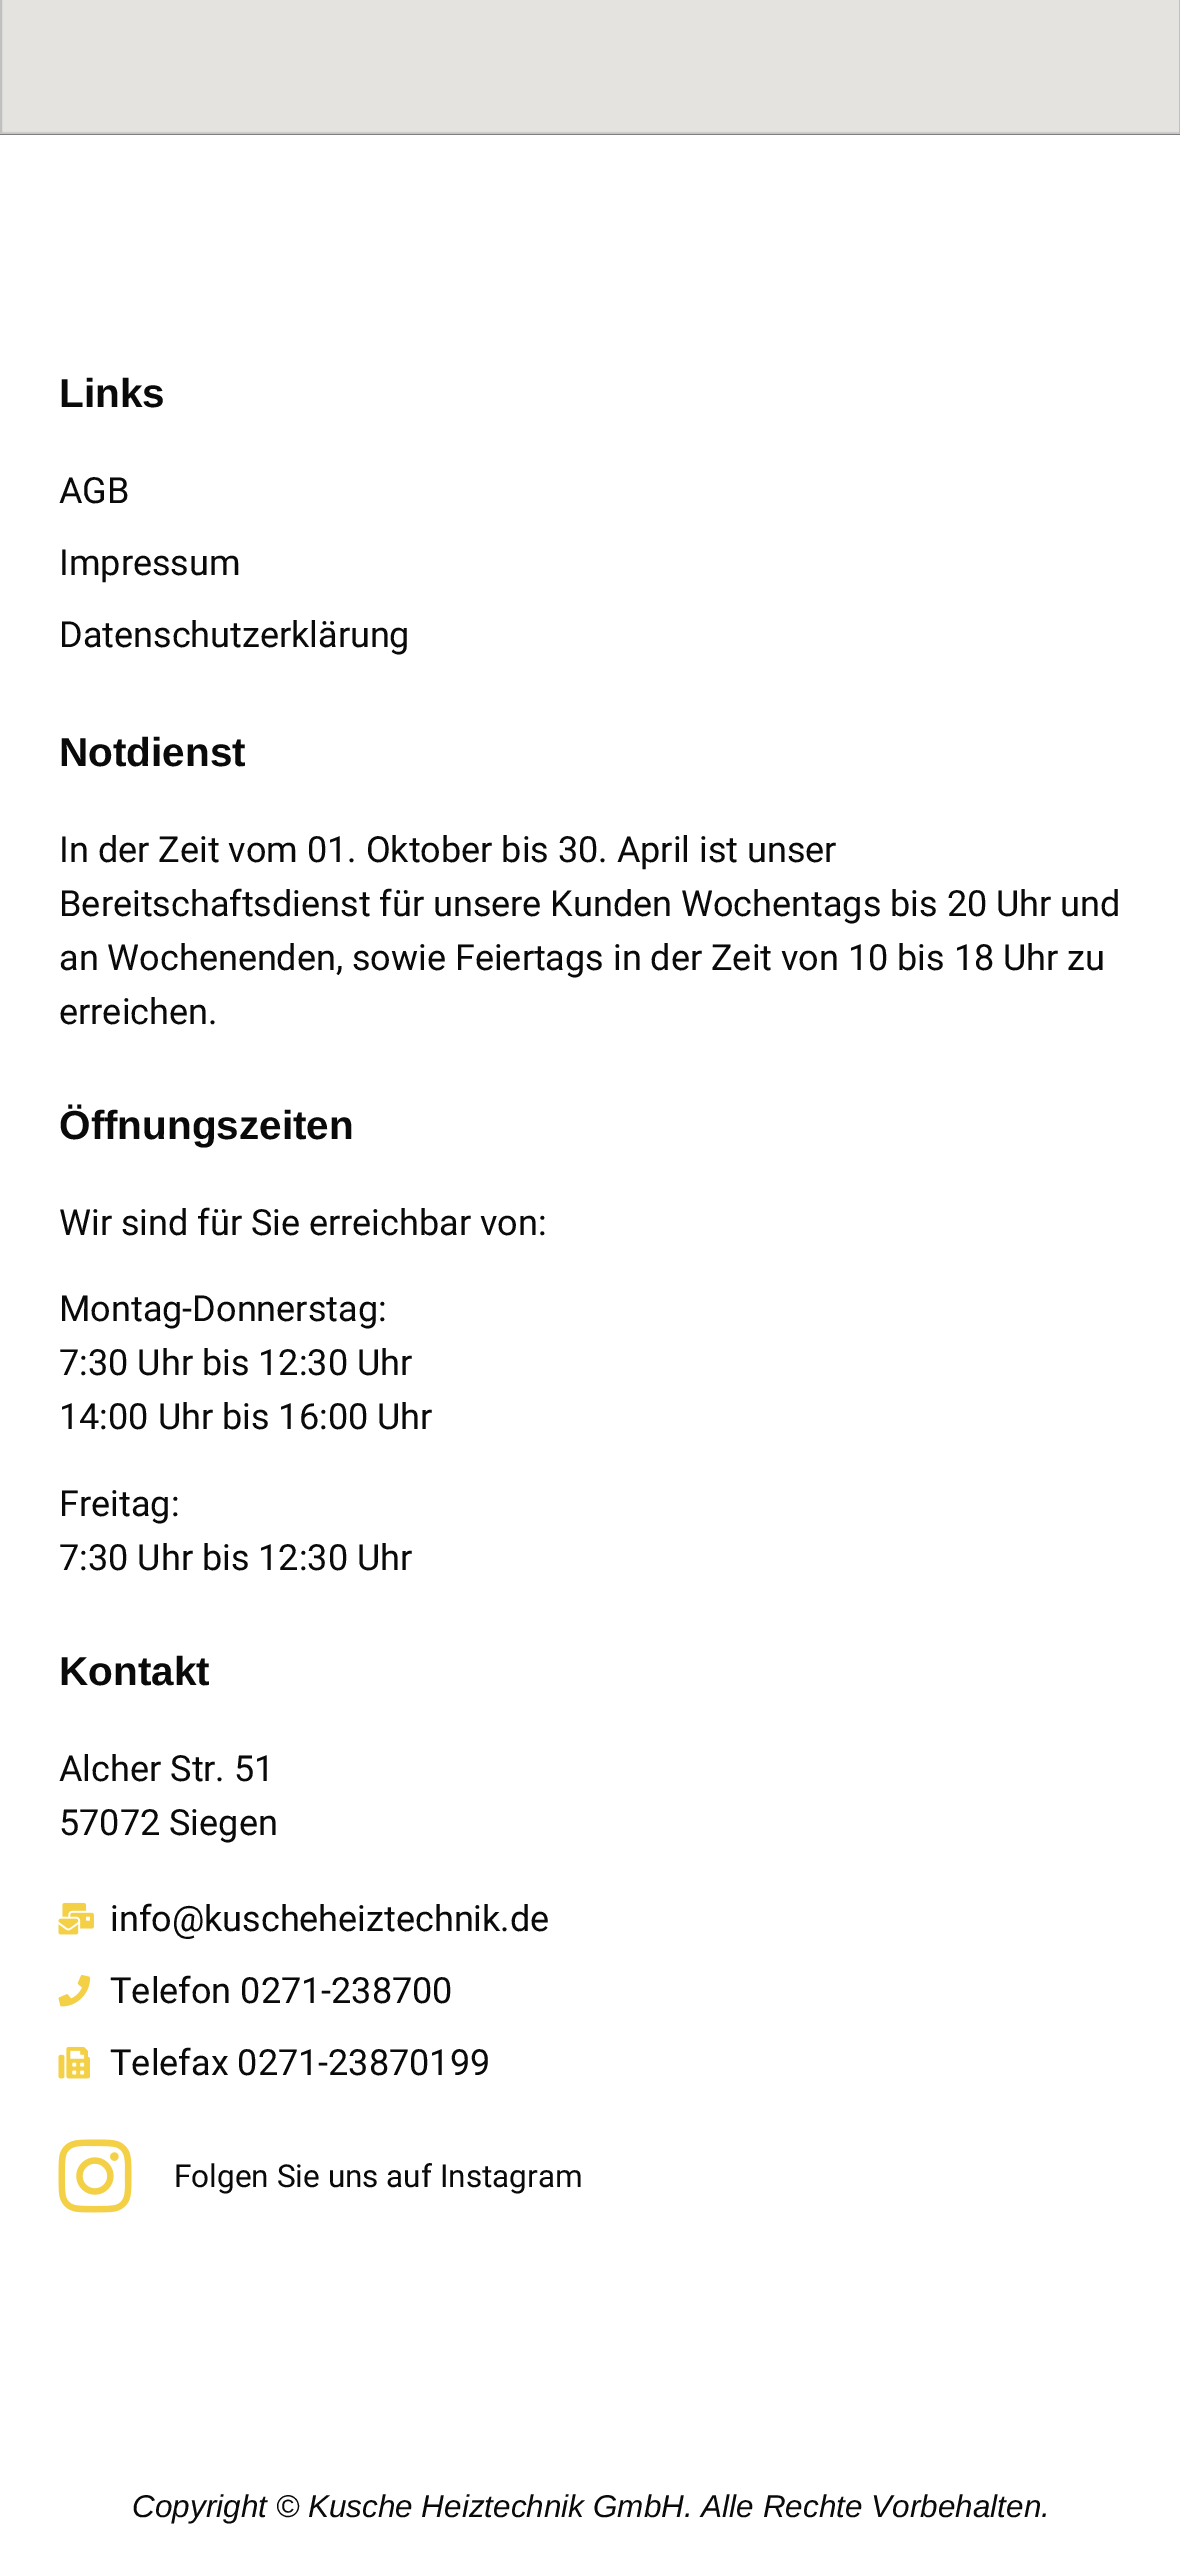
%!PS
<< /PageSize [1180 2556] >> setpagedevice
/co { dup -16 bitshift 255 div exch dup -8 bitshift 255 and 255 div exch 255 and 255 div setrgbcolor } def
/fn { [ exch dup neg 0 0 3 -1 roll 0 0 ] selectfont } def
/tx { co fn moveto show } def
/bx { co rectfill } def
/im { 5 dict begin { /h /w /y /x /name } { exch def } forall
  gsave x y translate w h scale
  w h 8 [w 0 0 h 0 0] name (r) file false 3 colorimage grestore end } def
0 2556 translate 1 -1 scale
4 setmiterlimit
0 0 1180 2556 16#11131B bx
(media/1.raw) 0 0 1180 135 im
0 135 1180 2421 16#FFFFFF bx
(media/2.raw) 58 1902 36 33 im
(media/3.raw) 58 1975 33 32 im
(media/4.raw) 58 2046 32 33 im
(media/5.raw) 58 2139 74 74 im
(Links) 59 407 /LiberationSans-Bold 40.5 16#0A0A0A tx
(AGB) 59 503 /Roboto-Regular 36 16#0A0A0A tx
(Impressum) 59 575 /Roboto-Regular 36 16#0A0A0A tx
(Datenschutzerklärung) 59 647 /Roboto-Regular 36 16#0A0A0A tx
(Notdienst) 59 766 /LiberationSans-Bold 40.5 16#0A0A0A tx
(In der Zeit vom 01. Oktober bis 30. April ist unser) 59 862 /Roboto-Regular 36 16#0A0A0A tx
(Bereitschaftsdienst für unsere Kunden Wochentags bis 20 Uhr und) 59 916 /Roboto-Regular 36 16#0A0A0A tx
(an Wochenenden, sowie Feiertags in der Zeit von 10 bis 18 Uhr zu) 59 970 /Roboto-Regular 36 16#0A0A0A tx
(erreichen.) 59 1024 /Roboto-Regular 36 16#0A0A0A tx
(Öffnungszeiten) 59 1139 /LiberationSans-Bold 40.5 16#0A0A0A tx
(Wir sind für Sie erreichbar von:) 59 1235 /Roboto-Regular 36 16#0A0A0A tx
(Montag-Donnerstag:) 59 1321 /Roboto-Regular 36 16#0A0A0A tx
(7:30 Uhr bis 12:30 Uhr) 59 1375 /Roboto-Regular 36 16#0A0A0A tx
(14:00 Uhr bis 16:00 Uhr) 59 1429 /Roboto-Regular 36 16#0A0A0A tx
(Freitag:) 59 1516 /Roboto-Regular 36 16#0A0A0A tx
(7:30 Uhr bis 12:30 Uhr) 59 1570 /Roboto-Regular 36 16#0A0A0A tx
(Kontakt) 59 1685 /LiberationSans-Bold 40.5 16#0A0A0A tx
(Alcher Str. 51) 59 1781 /Roboto-Regular 36 16#0A0A0A tx
(57072 Siegen) 59 1835 /Roboto-Regular 36 16#0A0A0A tx
(info@kuscheheiztechnik.de) 110 1931 /Roboto-Regular 36 16#0A0A0A tx
(Telefon 0271-238700) 110 2003 /Roboto-Regular 36 16#0A0A0A tx
(Telefax 0271-23870199) 110 2075 /Roboto-Regular 36 16#0A0A0A tx
(Folgen Sie uns auf Instagram) 174 2187 /Roboto-Regular 31.5 16#0A0A0A tx
(Copyright © Kusche Heiztechnik GmbH. Alle Rechte Vorbehalten.) 132 2517 /LiberationSans-Italic 31.5 16#0A0A0A tx
showpage
